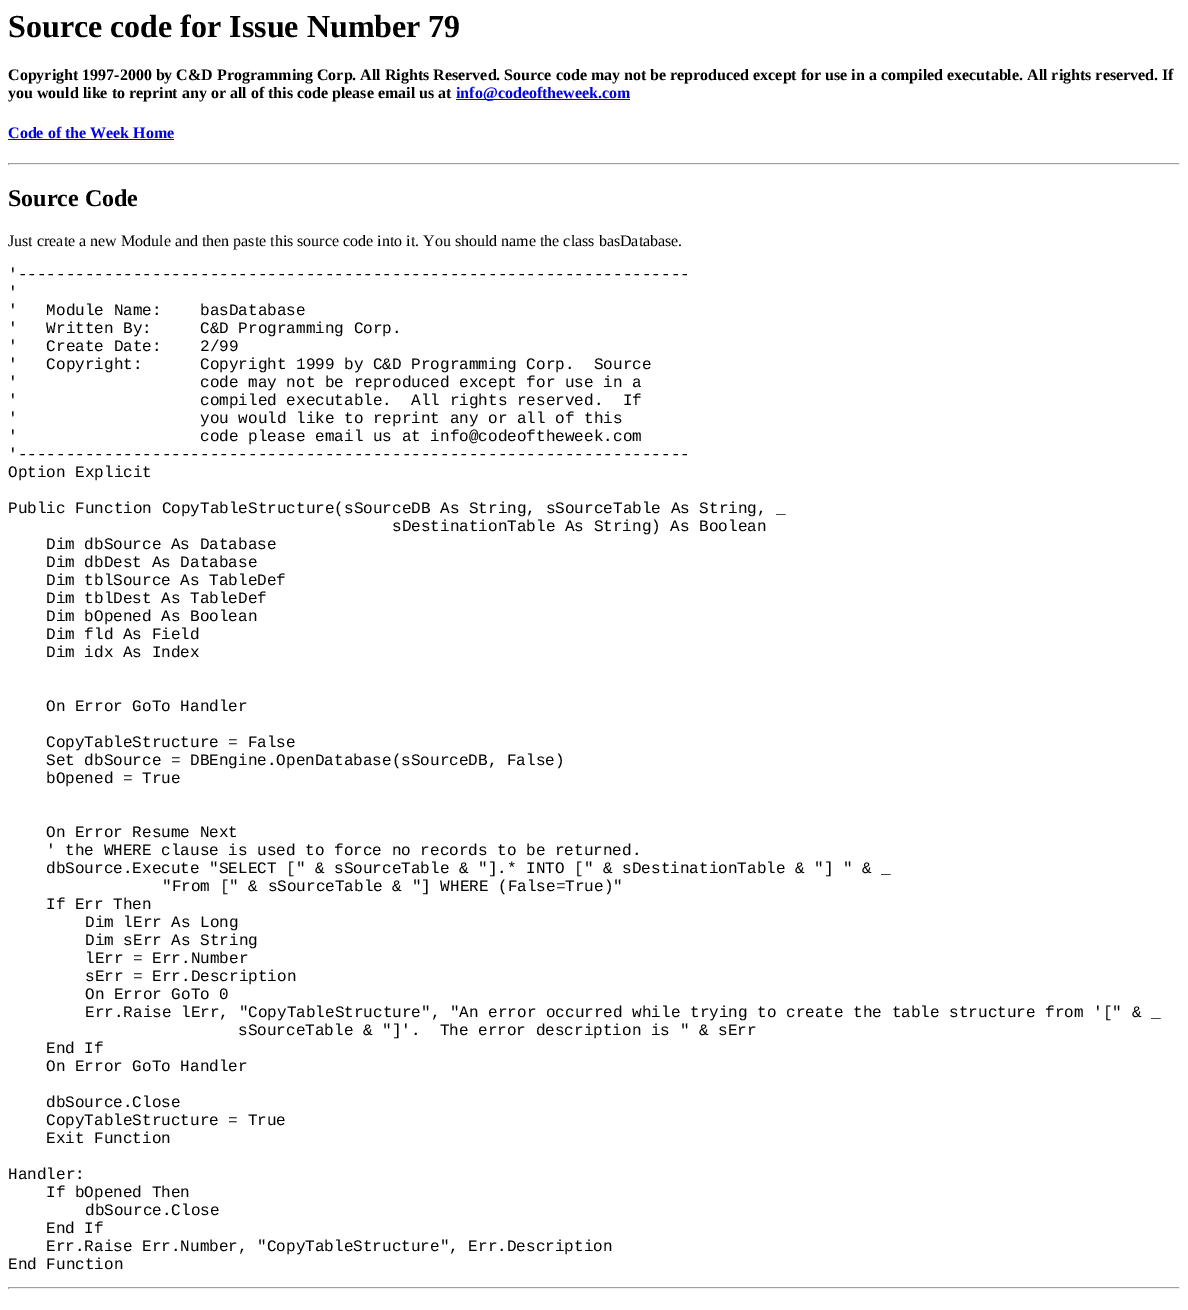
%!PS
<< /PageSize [1188 1310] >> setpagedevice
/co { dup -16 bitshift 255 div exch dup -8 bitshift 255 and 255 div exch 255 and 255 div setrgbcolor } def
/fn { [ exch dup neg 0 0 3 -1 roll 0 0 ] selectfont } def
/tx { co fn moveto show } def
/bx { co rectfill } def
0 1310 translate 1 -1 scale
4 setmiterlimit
0 0 1188 1310 16#FFFFFF bx
456 99 174 1 16#0000EE bx
8 139 166 1 16#0000EE bx
8 163 1172 1 16#9F9F9F bx
1179 163 1 2 16#EEEEEE bx
8 164 1172 1 16#EEEEEE bx
8 163 1 2 16#9F9F9F bx
8 1287 1172 1 16#9F9F9F bx
1179 1287 1 2 16#EEEEEE bx
8 1288 1172 1 16#EEEEEE bx
8 1287 1 2 16#9F9F9F bx
(Source code for Issue Number 79) 8 37 /LiberationSerif-Bold 32 16#000000 tx
(Copyright 1997-2000 by C&D Programming Corp. All Rights Reserved. Source code may not be reproduced except for use in a compiled executable. All rights reserved. If) 8 80 /LiberationSerif-Bold 16 16#000000 tx
(you would like to reprint any or all of this code please email us at) 8 98 /LiberationSerif-Bold 16 16#000000 tx
(info@codeoftheweek.com) 456 98 /LiberationSerif-Bold 16 16#0000EE tx
(Code of the Week Home) 8 138 /LiberationSerif-Bold 16 16#0000EE tx
(Source Code) 8 206 /LiberationSerif-Bold 24 16#000000 tx
(Just create a new Module and then paste this source code into it. You should name the class basDatabase.) 8 246 /LiberationSerif-Regular 16 16#000000 tx
('----------------------------------------------------------------------) 8 279 /LiberationMono-Regular 16 16#000000 tx
(') 8 297 /LiberationMono-Regular 16 16#000000 tx
('   Module Name:    basDatabase) 8 315 /LiberationMono-Regular 16 16#000000 tx
('   Written By:     C&D Programming Corp.) 8 333 /LiberationMono-Regular 16 16#000000 tx
('   Create Date:    2/99) 8 351 /LiberationMono-Regular 16 16#000000 tx
('   Copyright:      Copyright 1999 by C&D Programming Corp.  Source) 8 369 /LiberationMono-Regular 16 16#000000 tx
('                   code may not be reproduced except for use in a) 8 387 /LiberationMono-Regular 16 16#000000 tx
('                   compiled executable.  All rights reserved.  If) 8 405 /LiberationMono-Regular 16 16#000000 tx
('                   you would like to reprint any or all of this) 8 423 /LiberationMono-Regular 16 16#000000 tx
('                   code please email us at info@codeoftheweek.com) 8 441 /LiberationMono-Regular 16 16#000000 tx
('----------------------------------------------------------------------) 8 459 /LiberationMono-Regular 16 16#000000 tx
(Option Explicit) 8 477 /LiberationMono-Regular 16 16#000000 tx
(Public Function CopyTableStructure\(sSourceDB As String, sSourceTable As String, _) 8 513 /LiberationMono-Regular 16 16#000000 tx
(sDestinationTable As String\) As Boolean) 392 531 /LiberationMono-Regular 16 16#000000 tx
(Dim dbSource As Database) 46 549 /LiberationMono-Regular 16 16#000000 tx
(Dim dbDest As Database) 46 567 /LiberationMono-Regular 16 16#000000 tx
(Dim tblSource As TableDef) 46 585 /LiberationMono-Regular 16 16#000000 tx
(Dim tblDest As TableDef) 46 603 /LiberationMono-Regular 16 16#000000 tx
(Dim bOpened As Boolean) 46 621 /LiberationMono-Regular 16 16#000000 tx
(Dim fld As Field) 46 639 /LiberationMono-Regular 16 16#000000 tx
(Dim idx As Index) 46 657 /LiberationMono-Regular 16 16#000000 tx
(On Error GoTo Handler) 46 711 /LiberationMono-Regular 16 16#000000 tx
(CopyTableStructure = False) 46 747 /LiberationMono-Regular 16 16#000000 tx
(Set dbSource = DBEngine.OpenDatabase\(sSourceDB, False\)) 46 765 /LiberationMono-Regular 16 16#000000 tx
(bOpened = True) 46 783 /LiberationMono-Regular 16 16#000000 tx
(On Error Resume Next) 46 837 /LiberationMono-Regular 16 16#000000 tx
(' the WHERE clause is used to force no records to be returned.) 46 855 /LiberationMono-Regular 16 16#000000 tx
(dbSource.Execute "SELECT [" & sSourceTable & "].* INTO [" & sDestinationTable & "] " & _) 46 873 /LiberationMono-Regular 16 16#000000 tx
("From [" & sSourceTable & "] WHERE \(False=True\)") 162 891 /LiberationMono-Regular 16 16#000000 tx
(If Err Then) 46 909 /LiberationMono-Regular 16 16#000000 tx
(Dim lErr As Long) 85 927 /LiberationMono-Regular 16 16#000000 tx
(Dim sErr As String) 85 945 /LiberationMono-Regular 16 16#000000 tx
(lErr = Err.Number) 85 963 /LiberationMono-Regular 16 16#000000 tx
(sErr = Err.Description) 85 981 /LiberationMono-Regular 16 16#000000 tx
(On Error GoTo 0) 85 999 /LiberationMono-Regular 16 16#000000 tx
(Err.Raise lErr, "CopyTableStructure", "An error occurred while trying to create the table structure from '[" & _) 85 1017 /LiberationMono-Regular 16 16#000000 tx
(sSourceTable & "]'.  The error description is " & sErr) 238 1035 /LiberationMono-Regular 16 16#000000 tx
(End If) 46 1053 /LiberationMono-Regular 16 16#000000 tx
(On Error GoTo Handler) 46 1071 /LiberationMono-Regular 16 16#000000 tx
(dbSource.Close) 46 1107 /LiberationMono-Regular 16 16#000000 tx
(CopyTableStructure = True) 46 1125 /LiberationMono-Regular 16 16#000000 tx
(Exit Function) 46 1143 /LiberationMono-Regular 16 16#000000 tx
(Handler:) 8 1179 /LiberationMono-Regular 16 16#000000 tx
(If bOpened Then) 46 1197 /LiberationMono-Regular 16 16#000000 tx
(dbSource.Close) 85 1215 /LiberationMono-Regular 16 16#000000 tx
(End If) 46 1233 /LiberationMono-Regular 16 16#000000 tx
(Err.Raise Err.Number, "CopyTableStructure", Err.Description) 46 1251 /LiberationMono-Regular 16 16#000000 tx
(End Function) 8 1269 /LiberationMono-Regular 16 16#000000 tx
showpage
